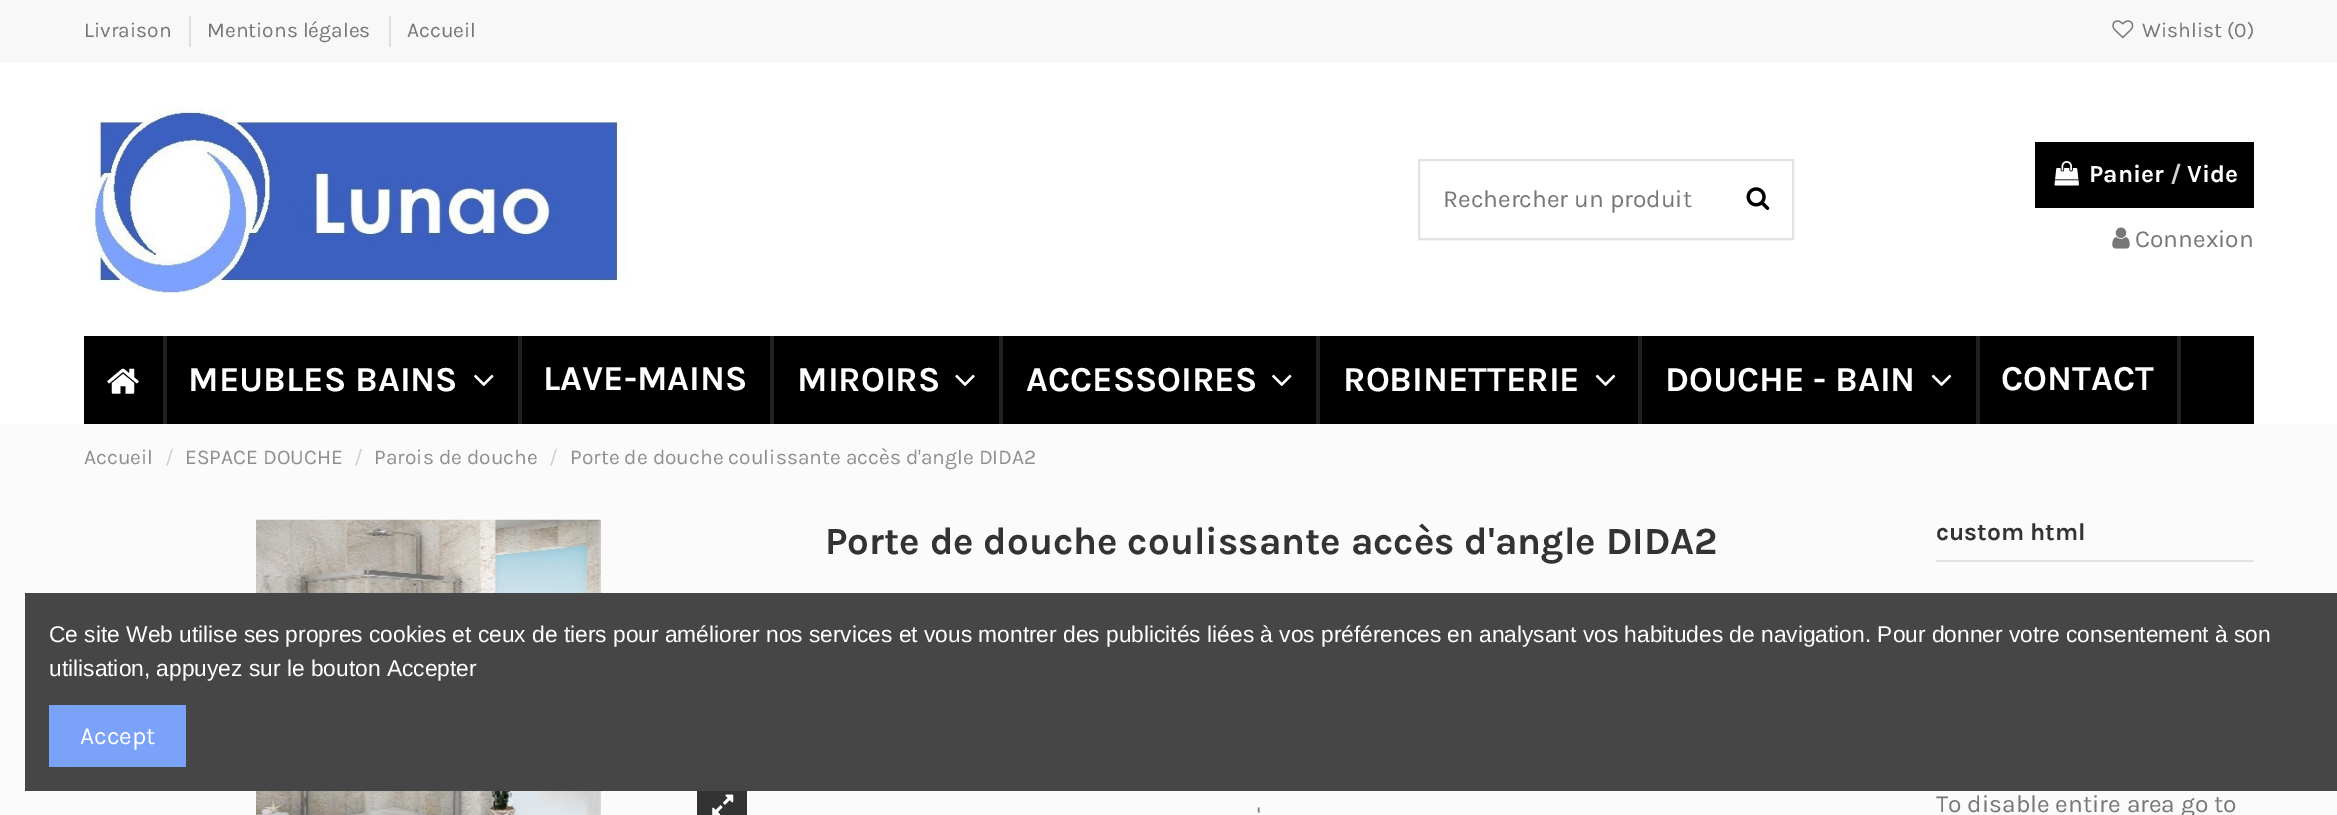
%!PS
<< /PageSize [2337 815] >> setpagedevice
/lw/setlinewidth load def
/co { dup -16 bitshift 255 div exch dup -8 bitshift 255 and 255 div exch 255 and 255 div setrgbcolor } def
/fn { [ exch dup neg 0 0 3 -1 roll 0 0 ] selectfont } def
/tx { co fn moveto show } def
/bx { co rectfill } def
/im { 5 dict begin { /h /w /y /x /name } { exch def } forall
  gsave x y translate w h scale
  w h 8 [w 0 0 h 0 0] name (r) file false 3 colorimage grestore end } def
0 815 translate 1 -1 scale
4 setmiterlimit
0 0 2337 815 16#FFFFFF bx
0 0 2337 63 16#F8F8F8 bx
189 16 2 31 16#DEDEDE bx
389 16 2 31 16#DEDEDE bx
(media/1.raw) 2112 20 22 19 im
(media/2.raw) 84 107 546 186 im
16#E3E3E3 co
2 lw
1419 160 374 79 rectstroke
(media/3.raw) 1746 187 24 23 im
2035 142 219 66 16#000000 bx
(media/4.raw) 2054 161 25 25 im
(media/5.raw) 2112 227 18 22 im
84 336 2170 88 16#000000 bx
(media/6.raw) 107 368 32 26 im
163 336 4 88 16#212121 bx
(media/7.raw) 474 374 20 13 im
518 336 4 88 16#212121 bx
770 336 4 88 16#212121 bx
(media/8.raw) 955 374 20 12 im
999 336 4 88 16#212121 bx
(media/7.raw) 1272 374 20 13 im
1316 336 4 88 16#212121 bx
(media/9.raw) 1595 374 21 13 im
1638 336 4 88 16#212121 bx
(media/9.raw) 1931 374 21 13 im
1976 336 4 88 16#212121 bx
2177 336 4 88 16#212121 bx
0 424 2337 391 16#FBFBFB bx
(media/10.raw) 256 519 345 296 im
697 791 50 24 16#333333 bx
(media/11.raw) 712 794 22 21 im
1936 560 318 2 16#E3E3E3 bx
25 593 2312 198 16#464646 bx
49 705 137 62 16#7BA2F9 bx
(Livraison) 84 37 /Karla-Regular 21 16#777777 tx
(Mentions légales) 207 37 /Karla-Regular 21 16#777777 tx
(Accueil) 407 37 /Karla-Regular 21 16#777777 tx
(Wishlist \(0\)) 2142 37 /Karla-Regular 21 16#777777 tx
(Rechercher un produit) 1443 207 /Karla-Regular 24.5 16#777777 tx
(Panier) 2089 182 /Karla-Bold 24.5 16#FFFFFF tx
(/) 2170 182 /Karla-Bold 24.5 16#D0D0D0 tx
(Vide) 2187 182 /Karla-Bold 24.5 16#FFFFFF tx
(Connexion) 2135 247 /Karla-Regular 24.5 16#777777 tx
(MEUBLES BAINS) 188 391 /Karla-Bold 35 16#FFFFFF tx
(LAVE-MAINS) 543 390 /Karla-Bold 35 16#FFFFFF tx
(MIROIRS) 797 391 /Karla-Bold 35 16#FFFFFF tx
(ACCESSOIRES) 1026 391 /Karla-Bold 35 16#FFFFFF tx
(ROBINETTERIE) 1343 391 /Karla-Bold 35 16#FFFFFF tx
(DOUCHE - BAIN) 1665 391 /Karla-Bold 35 16#FFFFFF tx
(CONTACT) 2001 390 /Karla-Bold 35 16#FFFFFF tx
(Accueil) 84 464 /Karla-Regular 21 16#8F8F8F tx
(/) 165 464 /Karla-Regular 21 16#D0D0D0 tx
(ESPACE DOUCHE) 185 464 /Karla-Regular 21 16#8F8F8F tx
(/) 354 464 /Karla-Regular 21 16#D0D0D0 tx
(Parois de douche) 374 464 /Karla-Regular 21 16#8F8F8F tx
(/) 549 464 /Karla-Regular 21 16#D0D0D0 tx
(Porte de douche coulissante accès d'angle DIDA2) 570 464 /Karla-Regular 21 16#8F8F8F tx
(Porte de douche coulissante accès d'angle DIDA2) 825 554 /Karla-Bold 38.5 16#333333 tx
(') 1257 824 /Karla-Regular 24.5 16#777777 tx
(custom html) 1936 540 /Karla-Bold 24.5 16#333333 tx
(To disable entire area go to) 1936 812 /Karla-Regular 24.5 16#777777 tx
(Ce site Web utilise ses propres cookies et ceux de tiers pour améliorer nos services et vous montrer des publicités liées à vos préférences en analysant vos habitudes de navigation. Pour donner votre consentement à son) 49 642 /LiberationSans-Regular 22.75 16#FFFFFF tx
(utilisation, appuyez sur le bouton Accepter) 49 676 /LiberationSans-Regular 22.75 16#FFFFFF tx
(Accept) 80 744 /Karla-Regular 24.5 16#FFFFFF tx
showpage
